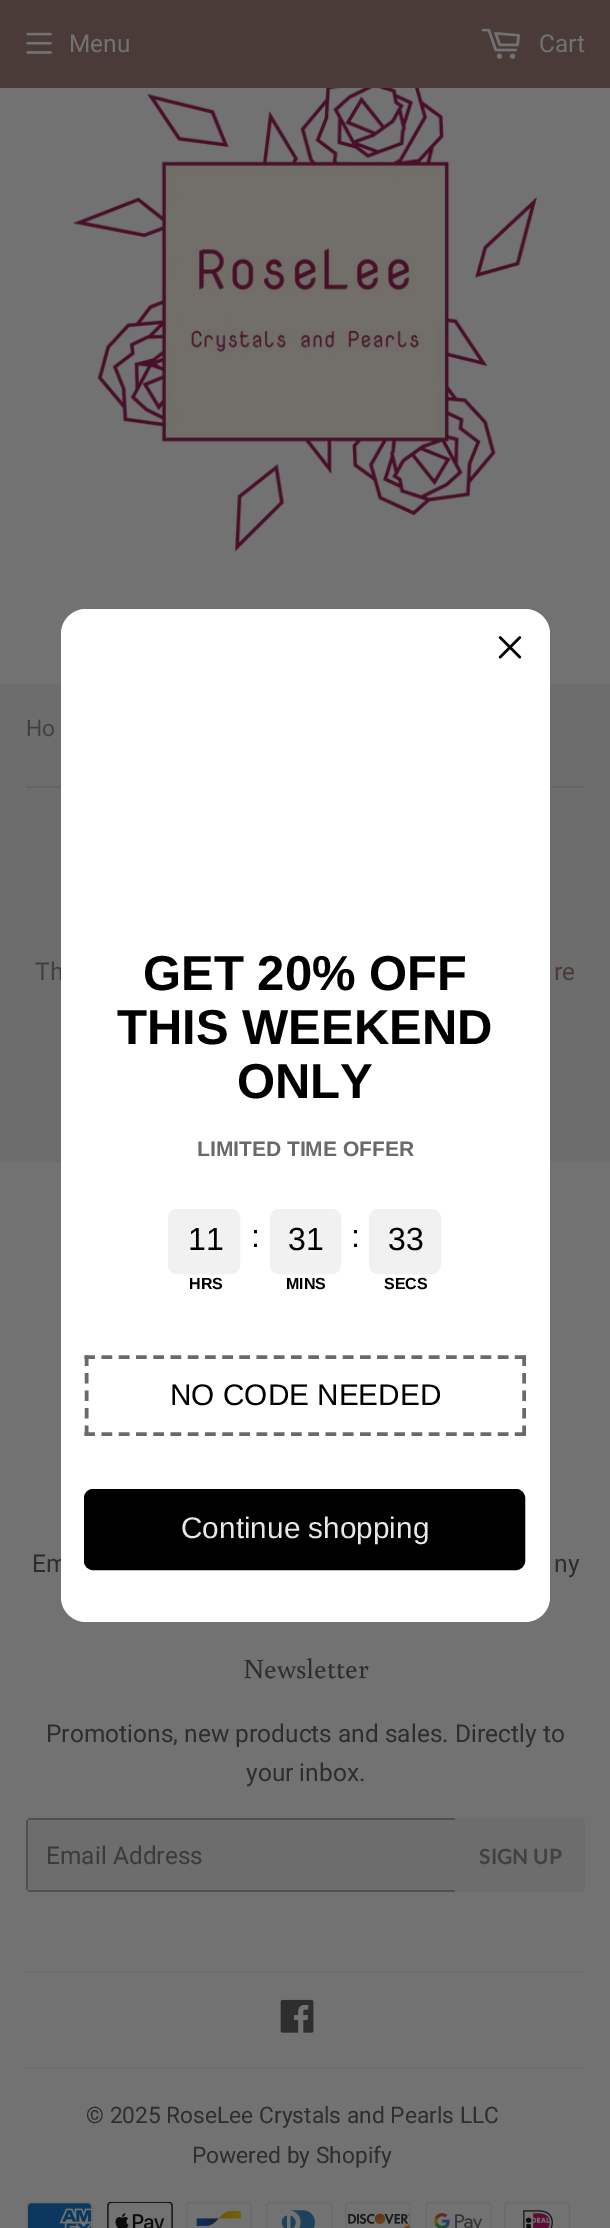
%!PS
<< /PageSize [610 2228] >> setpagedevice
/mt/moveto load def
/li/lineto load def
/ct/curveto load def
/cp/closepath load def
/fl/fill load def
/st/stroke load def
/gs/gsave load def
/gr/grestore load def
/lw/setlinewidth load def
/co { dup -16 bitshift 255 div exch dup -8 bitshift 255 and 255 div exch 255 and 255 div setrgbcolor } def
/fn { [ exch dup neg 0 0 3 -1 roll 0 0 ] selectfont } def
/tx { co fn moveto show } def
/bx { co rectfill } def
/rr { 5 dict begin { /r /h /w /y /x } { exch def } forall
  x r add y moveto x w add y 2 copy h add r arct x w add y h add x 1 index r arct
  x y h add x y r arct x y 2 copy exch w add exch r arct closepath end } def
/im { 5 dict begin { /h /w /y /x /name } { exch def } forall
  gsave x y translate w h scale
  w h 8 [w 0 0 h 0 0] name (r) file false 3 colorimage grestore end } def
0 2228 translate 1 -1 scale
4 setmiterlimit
0 0 610 2228 16#6D6D6D bx
0 0 610 88 16#4A3B38 bx
(media/1.raw) 26 32 26 22 im
(media/2.raw) 481 28 39 31 im
0 88 610 596 16#727272 bx
(media/3.raw) 73 88 465 464 im
26 786 559 2 16#656565 bx
0 1162 610 1066 16#727272 bx
16#6D6D6D co
26 1818 431 74 4 rr fl
28 1818 427 2 16#505050 bx
28 1890 427 2 16#505050 bx
26 1820 2 70 16#505050 bx
16#6D6D6D co
457 1818 mt 581 1818 li 583 1818 585 1820 585 1822 ct 585 1888 li 585 1890 583 1892 581 1892 ct 457 1892 li cp fl
26 1971 559 2 16#6D6D6D bx
(media/5.raw) 280 1999 34 34 im
26 2067 559 2 16#6D6D6D bx
(media/6.raw) 26 2202 67 26 im
(media/7.raw) 107 2202 66 26 im
(media/8.raw) 186 2202 66 26 im
(media/9.raw) 266 2202 67 26 im
(media/10.raw) 345 2202 66 26 im
(media/11.raw) 425 2202 67 26 im
(media/12.raw) 504 2202 67 26 im
(Menu) 69 52 /Roboto-Regular 24.5 16#727272 tx
(Cart) 539 52 /Roboto-Regular 24.5 16#727272 tx
(Ho) 26 736 /Roboto-Regular 22.75 16#414141 tx
(Th) 35 980 /Roboto-Regular 24.5 16#414141 tx
(re) 554 980 /Roboto-Regular 24.5 16#4A3B38 tx
(Em) 32 1572 /Roboto-Regular 24.5 16#2E2E2E tx
16#FFFFFF co
61 609 489 1013 25 rr fl
(media/4.raw) 498 636 24 23 im
(NO CODE NEEDED) 170 1405 /LiberationSans-Regular 29.75 16#000000 tx
16#696969 co
3.5 lw
[10.5 6.72] 0 setdash
84.5 1357 mt 525.5 1357 li st
[10.5 7] 0 setdash
524 1355.5 mt 524 1436 li st
[10.5 6.72] 0 setdash
84.5 1434 mt 525.5 1434 li st
[10.5 7] 0 setdash
86.5 1355.5 mt 86.5 1436 li st
16#F1F1F1 co
371 1211 68 61 7 rr gs fl gr
4 lw
[] 0 setdash
st
(33) 388 1250 /LiberationSans-Regular 32 16#000000 tx
16#F1F1F1 co
272 1211 67 61 7 rr gs fl gr
st
(31) 288 1250 /LiberationSans-Regular 32 16#000000 tx
16#F1F1F1 co
170 1211 68 61 7 rr gs fl gr
st
(11) 188 1250 /LiberationSans-Regular 32 16#000000 tx
(SECS) 384 1289 /LiberationSans-Bold 16 16#000000 tx
(:) 351 1247 /LiberationSans-Regular 32 16#000000 tx
(MINS) 286 1289 /LiberationSans-Bold 16 16#000000 tx
(:) 251 1247 /LiberationSans-Regular 32 16#000000 tx
(HRS) 189 1289 /LiberationSans-Bold 16 16#000000 tx
86 1491 437 77 7 rr gs fl gr
st
(Continue shopping) 181 1538 /LiberationSans-Regular 29.75 16#E8E8E8 tx
(LIMITED TIME OFFER) 197 1156 /LiberationSans-Bold 21 16#696969 tx
(ONLY) 237 1098 /LiberationSans-Bold 49 16#000000 tx
(THIS WEEKEND) 117 1044 /LiberationSans-Bold 49 16#000000 tx
(GET 20% OFF) 143 990 /LiberationSans-Bold 49 16#000000 tx
(ny) 554 1572 /Roboto-Regular 24.5 16#2E2E2E tx
(Newsletter) 243 1678 /Buenard-Regular 27.75 16#2E2E2E tx
(Promotions, new products and sales. Directly to) 46 1742 /Roboto-Regular 24.5 16#2E2E2E tx
(your inbox.) 246 1781 /Roboto-Regular 24.5 16#2E2E2E tx
(Email Address) 46 1864 /Roboto-Regular 24.5 16#3B3B3B tx
(SIGN UP) 479 1864 /Lato-Bold 21 16#414141 tx
(© 2025 RoseLee Crystals and Pearls LLC) 86 2123 /Roboto-Regular 22.75 16#2E2E2E tx
(Powered by Shopify) 192 2163 /Roboto-Regular 22.75 16#2E2E2E tx
showpage
